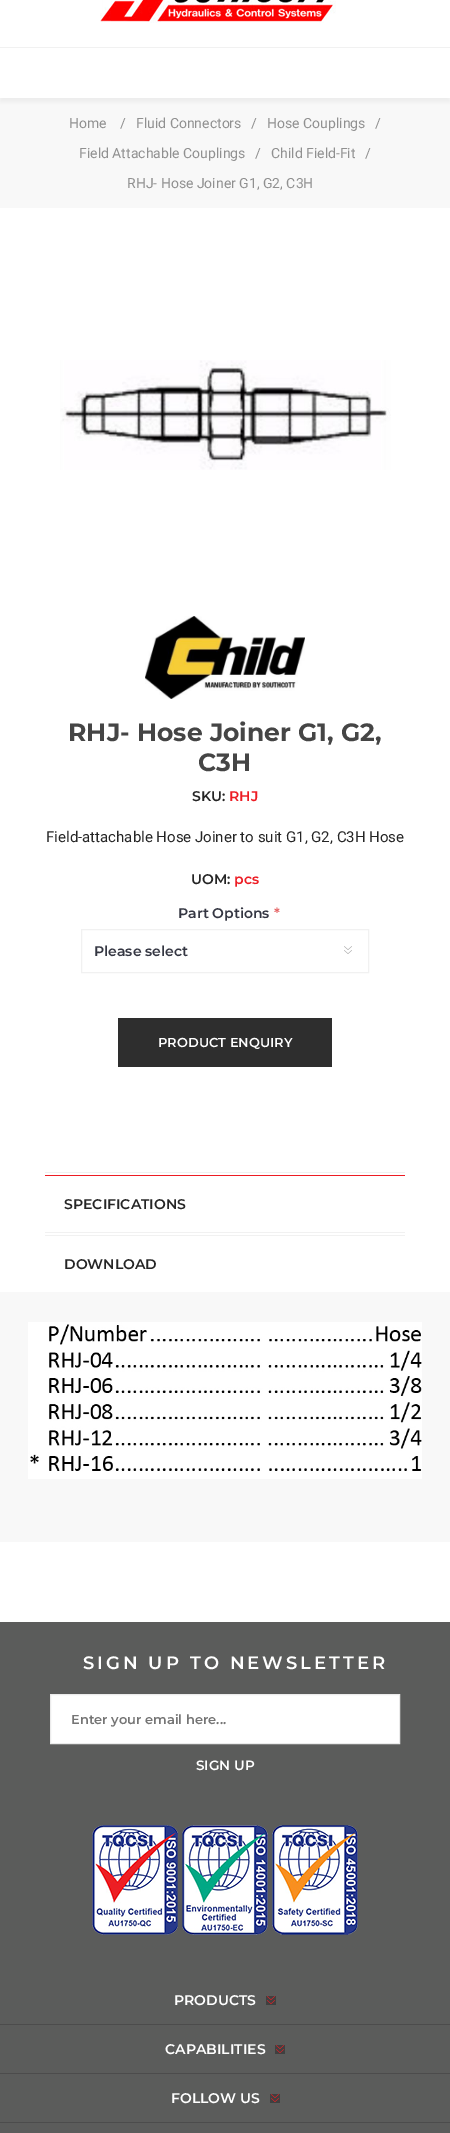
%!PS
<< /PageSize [450 2133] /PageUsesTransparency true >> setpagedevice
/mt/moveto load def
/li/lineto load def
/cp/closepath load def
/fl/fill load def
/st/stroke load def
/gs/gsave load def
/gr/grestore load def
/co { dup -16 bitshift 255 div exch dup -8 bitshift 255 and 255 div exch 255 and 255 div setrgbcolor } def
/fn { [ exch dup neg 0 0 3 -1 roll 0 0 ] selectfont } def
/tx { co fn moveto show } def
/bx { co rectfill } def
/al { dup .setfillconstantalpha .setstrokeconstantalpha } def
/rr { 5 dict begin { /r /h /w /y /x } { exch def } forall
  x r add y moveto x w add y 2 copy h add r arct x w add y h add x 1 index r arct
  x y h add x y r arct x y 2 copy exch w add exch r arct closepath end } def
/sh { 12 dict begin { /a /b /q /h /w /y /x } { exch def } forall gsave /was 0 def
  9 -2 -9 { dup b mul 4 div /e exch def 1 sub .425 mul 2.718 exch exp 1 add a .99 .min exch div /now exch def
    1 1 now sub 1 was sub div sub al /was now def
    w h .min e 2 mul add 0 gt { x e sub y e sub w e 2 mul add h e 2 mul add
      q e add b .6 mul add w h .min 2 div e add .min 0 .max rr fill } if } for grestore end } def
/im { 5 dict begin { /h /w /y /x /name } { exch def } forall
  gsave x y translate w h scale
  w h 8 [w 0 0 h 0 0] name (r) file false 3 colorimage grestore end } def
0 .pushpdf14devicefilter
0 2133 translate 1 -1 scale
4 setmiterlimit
0 0 450 2133 16#FFFFFF bx
(media/1.raw) 100 0 236 23 im
0 98 450 110 16#F8F8F8 bx
gs
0 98 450 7 rectclip
16#969696 co
0 51 450 51 0 3 .13 sh
gr
0 47 450 1 16#F1F1F1 bx
(media/2.raw) 60 360 331 110 im
(media/3.raw) 145 616 160 83 im
(media/4.raw) 344 946 8 8 im
81.5 929.5 287 43 rectstroke
118 1018 214 49 16#2E2E2E bx
45 1172 360 1 16#F1F1F1 bx
45 1232 360 1 16#F1F1F1 bx
45 1175 360 1 16#ED1C24 bx
45 1235 360 1 16#F1F1F1 bx
0 1292 450 250 16#F8F8F8 bx
(media/5.raw) 28 1322 394 157 im
0 1622 450 511 16#5B5C5B bx
16#FFFFFF co
50.5 1694.5 mt 399.5 1694.5 li 399.5 1743.5 li 50.5 1743.5 li cp gs fl gr
16#EBEBEB co
st
(media/6.raw) 92 1825 266 110 im
0 2024 450 1 16#4C4C4C bx
266 1996 10 8 16#ED1C24 bx
(media/7.raw) 266 1996 10 9 im
0 2073 450 1 16#4C4C4C bx
275 2045 10 8 16#ED1C24 bx
(media/7.raw) 275 2045 10 9 im
0 2122 450 1 16#4C4C4C bx
270 2094 10 8 16#ED1C24 bx
(media/7.raw) 270 2094 10 9 im
(Home) 69 128 /Roboto-Regular 14 16#909090 tx
(/) 120 128 /Roboto-Regular 14 16#909090 tx
(Fluid Connectors) 136 128 /Roboto-Regular 14 16#909090 tx
(/) 251 128 /Roboto-Regular 14 16#909090 tx
(Hose Couplings) 267 128 /Roboto-Regular 14 16#909090 tx
(/) 375 128 /Roboto-Regular 14 16#909090 tx
(Field Attachable Couplings) 79 158 /Roboto-Regular 14 16#909090 tx
(/) 255 158 /Roboto-Regular 14 16#909090 tx
(Child Field-Fit) 271 158 /Roboto-Regular 14 16#909090 tx
(/) 365 158 /Roboto-Regular 14 16#909090 tx
(RHJ- Hose Joiner G1, G2, C3H) 127 188 /Roboto-Regular 14 16#909090 tx
(RHJ- Hose Joiner G1, G2,) 68 741 /Montserrat-Bold 25 16#454545 tx
(C3H) 198 771 /Montserrat-Bold 25 16#454545 tx
(SKU:) 192 801 /Montserrat-SemiBold 14 16#252525 tx
(RHJ) 229 801 /Montserrat-SemiBold 14 16#ED1C24 tx
(Field-attachable Hose Joiner to suit G1, G2, C3H Hose) 46 842 /Roboto-Regular 15 16#252525 tx
(UOM:) 191 884 /Montserrat-SemiBold 14 16#252525 tx
(pcs) 234 884 /Montserrat-SemiBold 14 16#ED1C24 tx
(Part Options) 178 918 /Montserrat-SemiBold 14 16#343642 tx
(*) 274 918 /Montserrat-SemiBold 14 16#E56364 tx
(Please select) 94 956 /Montserrat-SemiBold 14 16#343642 tx
(PRODUCT ENQUIRY) 158 1047 /Montserrat-SemiBold 13 16#FFFFFF tx
(SPECIFICATIONS) 64 1209 /Montserrat-SemiBold 14 16#252525 tx
(DOWNLOAD) 64 1269 /Montserrat-SemiBold 14 16#252525 tx
/Montserrat-SemiBold 18 fn
16#FFFFFF co
83 1669 mt 3 0 (SIGN UP TO NEWSLETTER) ashow
(Enter your email here...) 71 1724 /Montserrat-SemiBold 13 16#757575 tx
(SIGN UP) 196 1770 /Montserrat-SemiBold 13.5 16#FFFFFF tx
(PRODUCTS) 174 2005 /Montserrat-SemiBold 14 16#FFFFFF tx
(CAPABILITIES) 165 2054 /Montserrat-SemiBold 14 16#FFFFFF tx
(FOLLOW US) 171 2103 /Montserrat-SemiBold 14 16#FFFFFF tx
.poppdf14devicefilter showpage
